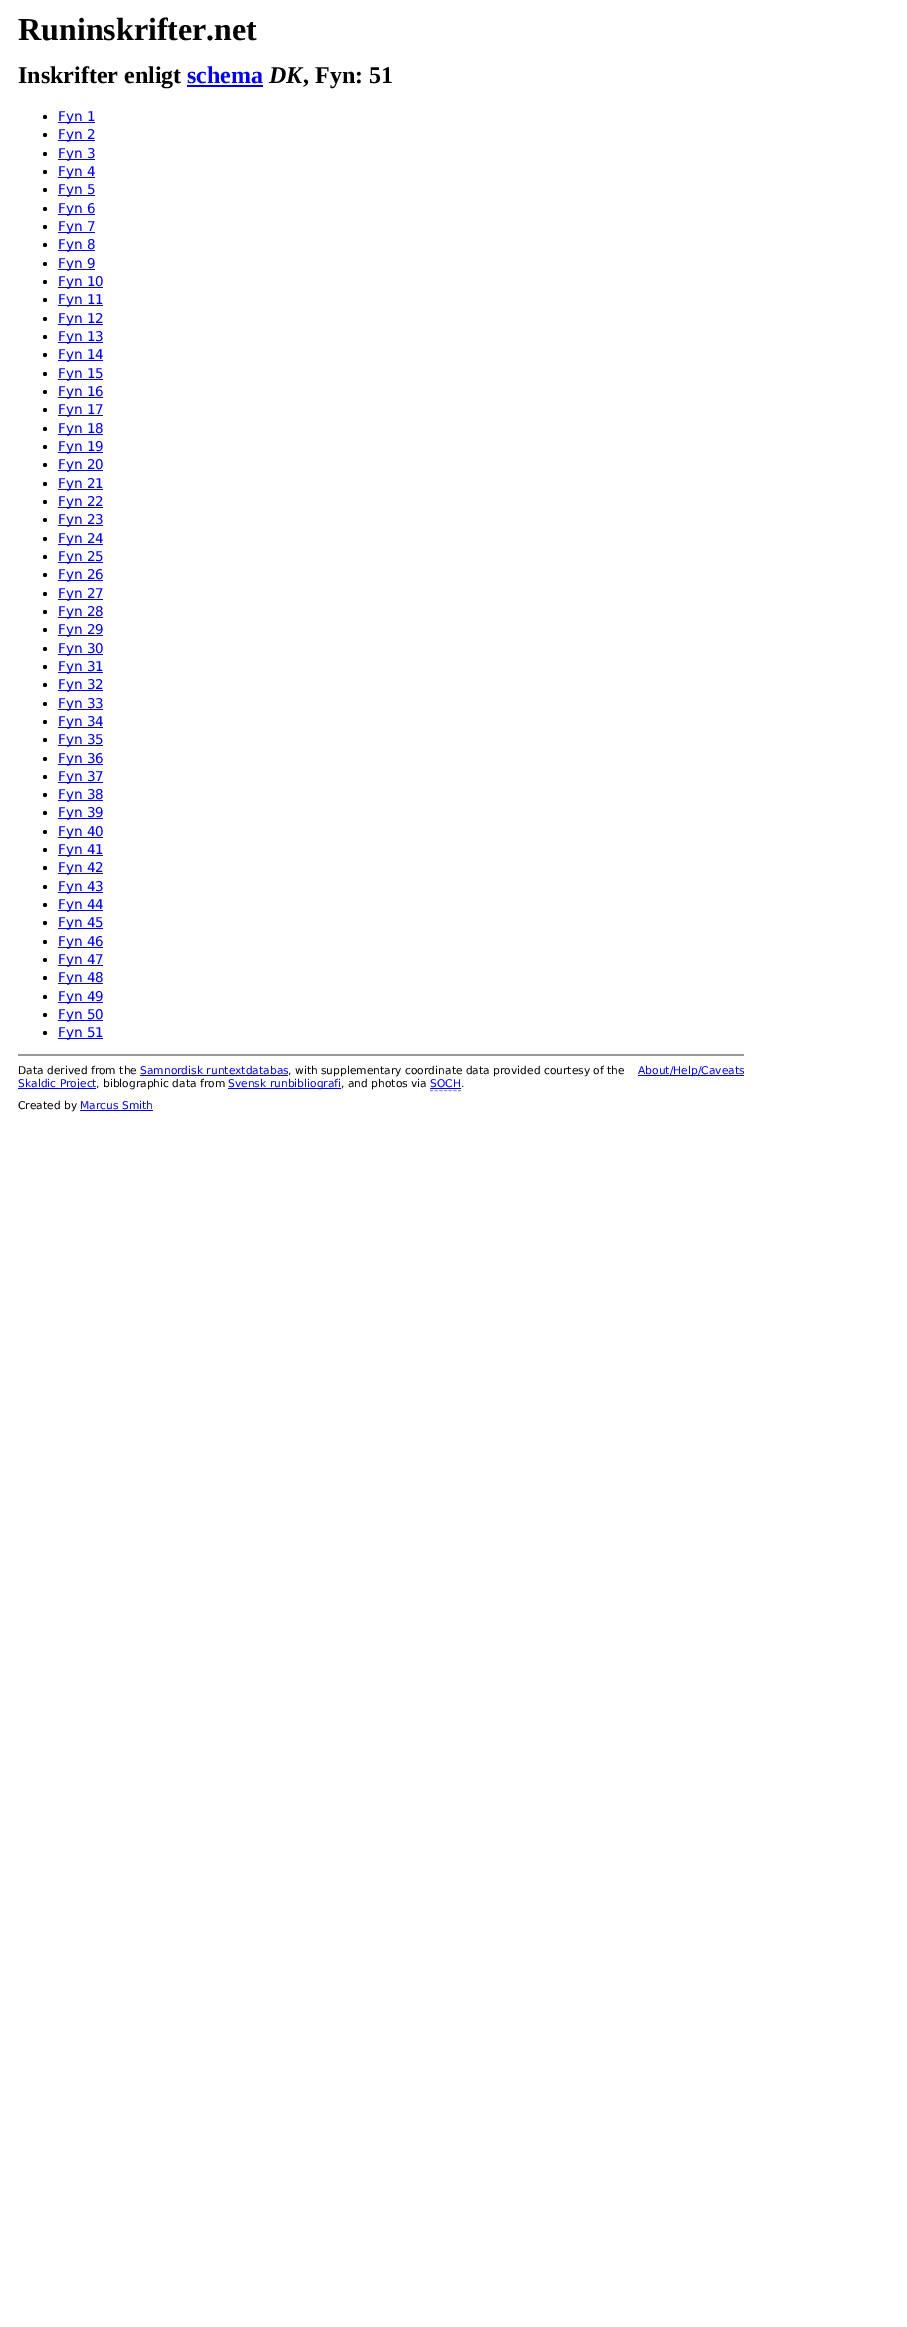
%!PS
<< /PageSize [907 2327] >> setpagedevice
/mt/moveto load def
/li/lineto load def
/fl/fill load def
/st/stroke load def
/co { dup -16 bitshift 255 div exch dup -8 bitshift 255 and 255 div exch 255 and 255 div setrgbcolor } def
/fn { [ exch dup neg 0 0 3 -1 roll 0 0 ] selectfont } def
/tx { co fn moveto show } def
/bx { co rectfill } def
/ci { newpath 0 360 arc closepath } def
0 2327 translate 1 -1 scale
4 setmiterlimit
0 0 907 2327 16#FFFFFF bx
187 85 76 2 16#0000EE bx
16#000000 co
45 117 2 ci fl
58 122 37 1 16#0000EE bx
16#000000 co
45 135 2 ci fl
58 140 37 1 16#0000EE bx
16#000000 co
45 154 2 ci fl
58 159 37 1 16#0000EE bx
16#000000 co
45 172 2 ci fl
58 177 37 1 16#0000EE bx
16#000000 co
45 190 2 ci fl
58 195 37 1 16#0000EE bx
16#000000 co
45 209 2 ci fl
58 214 37 1 16#0000EE bx
16#000000 co
45 227 2 ci fl
58 232 37 1 16#0000EE bx
16#000000 co
45 245 2 ci fl
58 250 37 1 16#0000EE bx
16#000000 co
45 264 2 ci fl
58 269 37 1 16#0000EE bx
16#000000 co
45 282 2 ci fl
58 287 45 1 16#0000EE bx
16#000000 co
45 300 2 ci fl
58 305 45 1 16#0000EE bx
16#000000 co
45 319 2 ci fl
58 324 45 1 16#0000EE bx
16#000000 co
45 337 2 ci fl
58 342 45 1 16#0000EE bx
16#000000 co
45 355 2 ci fl
58 360 45 1 16#0000EE bx
16#000000 co
45 374 2 ci fl
58 379 45 1 16#0000EE bx
16#000000 co
45 392 2 ci fl
58 397 45 1 16#0000EE bx
16#000000 co
45 410 2 ci fl
58 415 45 1 16#0000EE bx
16#000000 co
45 429 2 ci fl
58 434 45 1 16#0000EE bx
16#000000 co
45 447 2 ci fl
58 452 45 1 16#0000EE bx
16#000000 co
45 465 2 ci fl
58 470 45 1 16#0000EE bx
16#000000 co
45 484 2 ci fl
58 489 45 1 16#0000EE bx
16#000000 co
45 502 2 ci fl
58 507 45 1 16#0000EE bx
16#000000 co
45 520 2 ci fl
58 525 45 1 16#0000EE bx
16#000000 co
45 539 2 ci fl
58 544 45 1 16#0000EE bx
16#000000 co
45 557 2 ci fl
58 562 45 1 16#0000EE bx
16#000000 co
45 575 2 ci fl
58 580 45 1 16#0000EE bx
16#000000 co
45 594 2 ci fl
58 599 45 1 16#0000EE bx
16#000000 co
45 612 2 ci fl
58 617 45 1 16#0000EE bx
16#000000 co
45 630 2 ci fl
58 635 45 1 16#0000EE bx
16#000000 co
45 649 2 ci fl
58 654 45 1 16#0000EE bx
16#000000 co
45 667 2 ci fl
58 672 45 1 16#0000EE bx
16#000000 co
45 685 2 ci fl
58 690 45 1 16#0000EE bx
16#000000 co
45 704 2 ci fl
58 709 45 1 16#0000EE bx
16#000000 co
45 722 2 ci fl
58 727 45 1 16#0000EE bx
16#000000 co
45 740 2 ci fl
58 745 45 1 16#0000EE bx
16#000000 co
45 759 2 ci fl
58 764 45 1 16#0000EE bx
16#000000 co
45 777 2 ci fl
58 782 45 1 16#0000EE bx
16#000000 co
45 795 2 ci fl
58 800 45 1 16#0000EE bx
16#000000 co
45 813 2 ci fl
58 818 45 1 16#0000EE bx
16#000000 co
45 832 2 ci fl
58 837 45 1 16#0000EE bx
16#000000 co
45 850 2 ci fl
58 855 45 1 16#0000EE bx
16#000000 co
45 868 2 ci fl
58 873 45 1 16#0000EE bx
16#000000 co
45 887 2 ci fl
58 892 45 1 16#0000EE bx
16#000000 co
45 905 2 ci fl
58 910 45 1 16#0000EE bx
16#000000 co
45 923 2 ci fl
58 928 45 1 16#0000EE bx
16#000000 co
45 942 2 ci fl
58 947 45 1 16#0000EE bx
16#000000 co
45 960 2 ci fl
58 965 45 1 16#0000EE bx
16#000000 co
45 978 2 ci fl
58 983 45 1 16#0000EE bx
16#000000 co
45 997 2 ci fl
58 1002 45 1 16#0000EE bx
16#000000 co
45 1015 2 ci fl
58 1020 45 1 16#0000EE bx
16#000000 co
45 1033 2 ci fl
58 1038 45 1 16#0000EE bx
18 1054 726 2 16#999999 bx
140 1075 148 1 16#0000EE bx
18 1088 78 1 16#0000EE bx
228 1088 113 1 16#0000EE bx
16#999999 co
[3 1.67] 0 setdash
430 1090.5 mt 461 1090.5 li st
430 1088 31 1 16#0000EE bx
638 1075 106 1 16#0000EE bx
80 1110 73 1 16#0000EE bx
(Runinskrifter.net) 18 40 /LiberationSerif-Bold 32 16#000000 tx
(Inskrifter enligt) 18 83 /LiberationSerif-Bold 24 16#000000 tx
(schema) 187 83 /LiberationSerif-Bold 24 16#0000EE tx
(DK) 269 83 /LiberationSerif-BoldItalic 24 16#000000 tx
(, Fyn: 51) 303 83 /LiberationSerif-Bold 24 16#000000 tx
(Fyn 1) 58 121 /DejaVuSans-Regular 13.5 16#0000EE tx
(Fyn 2) 58 139 /DejaVuSans-Regular 13.5 16#0000EE tx
(Fyn 3) 58 158 /DejaVuSans-Regular 13.5 16#0000EE tx
(Fyn 4) 58 176 /DejaVuSans-Regular 13.5 16#0000EE tx
(Fyn 5) 58 194 /DejaVuSans-Regular 13.5 16#0000EE tx
(Fyn 6) 58 213 /DejaVuSans-Regular 13.5 16#0000EE tx
(Fyn 7) 58 231 /DejaVuSans-Regular 13.5 16#0000EE tx
(Fyn 8) 58 249 /DejaVuSans-Regular 13.5 16#0000EE tx
(Fyn 9) 58 268 /DejaVuSans-Regular 13.5 16#0000EE tx
(Fyn 10) 58 286 /DejaVuSans-Regular 13.5 16#0000EE tx
(Fyn 11) 58 304 /DejaVuSans-Regular 13.5 16#0000EE tx
(Fyn 12) 58 323 /DejaVuSans-Regular 13.5 16#0000EE tx
(Fyn 13) 58 341 /DejaVuSans-Regular 13.5 16#0000EE tx
(Fyn 14) 58 359 /DejaVuSans-Regular 13.5 16#0000EE tx
(Fyn 15) 58 378 /DejaVuSans-Regular 13.5 16#0000EE tx
(Fyn 16) 58 396 /DejaVuSans-Regular 13.5 16#0000EE tx
(Fyn 17) 58 414 /DejaVuSans-Regular 13.5 16#0000EE tx
(Fyn 18) 58 433 /DejaVuSans-Regular 13.5 16#0000EE tx
(Fyn 19) 58 451 /DejaVuSans-Regular 13.5 16#0000EE tx
(Fyn 20) 58 469 /DejaVuSans-Regular 13.5 16#0000EE tx
(Fyn 21) 58 488 /DejaVuSans-Regular 13.5 16#0000EE tx
(Fyn 22) 58 506 /DejaVuSans-Regular 13.5 16#0000EE tx
(Fyn 23) 58 524 /DejaVuSans-Regular 13.5 16#0000EE tx
(Fyn 24) 58 543 /DejaVuSans-Regular 13.5 16#0000EE tx
(Fyn 25) 58 561 /DejaVuSans-Regular 13.5 16#0000EE tx
(Fyn 26) 58 579 /DejaVuSans-Regular 13.5 16#0000EE tx
(Fyn 27) 58 598 /DejaVuSans-Regular 13.5 16#0000EE tx
(Fyn 28) 58 616 /DejaVuSans-Regular 13.5 16#0000EE tx
(Fyn 29) 58 634 /DejaVuSans-Regular 13.5 16#0000EE tx
(Fyn 30) 58 653 /DejaVuSans-Regular 13.5 16#0000EE tx
(Fyn 31) 58 671 /DejaVuSans-Regular 13.5 16#0000EE tx
(Fyn 32) 58 689 /DejaVuSans-Regular 13.5 16#0000EE tx
(Fyn 33) 58 708 /DejaVuSans-Regular 13.5 16#0000EE tx
(Fyn 34) 58 726 /DejaVuSans-Regular 13.5 16#0000EE tx
(Fyn 35) 58 744 /DejaVuSans-Regular 13.5 16#0000EE tx
(Fyn 36) 58 763 /DejaVuSans-Regular 13.5 16#0000EE tx
(Fyn 37) 58 781 /DejaVuSans-Regular 13.5 16#0000EE tx
(Fyn 38) 58 799 /DejaVuSans-Regular 13.5 16#0000EE tx
(Fyn 39) 58 817 /DejaVuSans-Regular 13.5 16#0000EE tx
(Fyn 40) 58 836 /DejaVuSans-Regular 13.5 16#0000EE tx
(Fyn 41) 58 854 /DejaVuSans-Regular 13.5 16#0000EE tx
(Fyn 42) 58 872 /DejaVuSans-Regular 13.5 16#0000EE tx
(Fyn 43) 58 891 /DejaVuSans-Regular 13.5 16#0000EE tx
(Fyn 44) 58 909 /DejaVuSans-Regular 13.5 16#0000EE tx
(Fyn 45) 58 927 /DejaVuSans-Regular 13.5 16#0000EE tx
(Fyn 46) 58 946 /DejaVuSans-Regular 13.5 16#0000EE tx
(Fyn 47) 58 964 /DejaVuSans-Regular 13.5 16#0000EE tx
(Fyn 48) 58 982 /DejaVuSans-Regular 13.5 16#0000EE tx
(Fyn 49) 58 1001 /DejaVuSans-Regular 13.5 16#0000EE tx
(Fyn 50) 58 1019 /DejaVuSans-Regular 13.5 16#0000EE tx
(Fyn 51) 58 1037 /DejaVuSans-Regular 13.5 16#0000EE tx
(Data derived from the) 18 1074 /DejaVuSans-Regular 10.7 16#000000 tx
(Samnordisk runtextdatabas) 140 1074 /DejaVuSans-Regular 10.7 16#0000EE tx
(, with supplementary coordinate data provided courtesy of the) 288 1074 /DejaVuSans-Regular 10.7 16#000000 tx
(Skaldic Project) 18 1087 /DejaVuSans-Regular 10.7 16#0000EE tx
(, biblographic data from) 96 1087 /DejaVuSans-Regular 10.7 16#000000 tx
(Svensk runbibliografi) 228 1087 /DejaVuSans-Regular 10.7 16#0000EE tx
(, and photos via) 341 1087 /DejaVuSans-Regular 10.7 16#000000 tx
(SOCH) 430 1087 /DejaVuSans-Regular 10.7 16#0000EE tx
(.) 461 1087 /DejaVuSans-Regular 10.7 16#000000 tx
(About/Help/Caveats) 638 1074 /DejaVuSans-Regular 10.7 16#0000EE tx
(Created by) 18 1109 /DejaVuSans-Regular 10.7 16#000000 tx
(Marcus Smith) 80 1109 /DejaVuSans-Regular 10.7 16#0000EE tx
showpage
